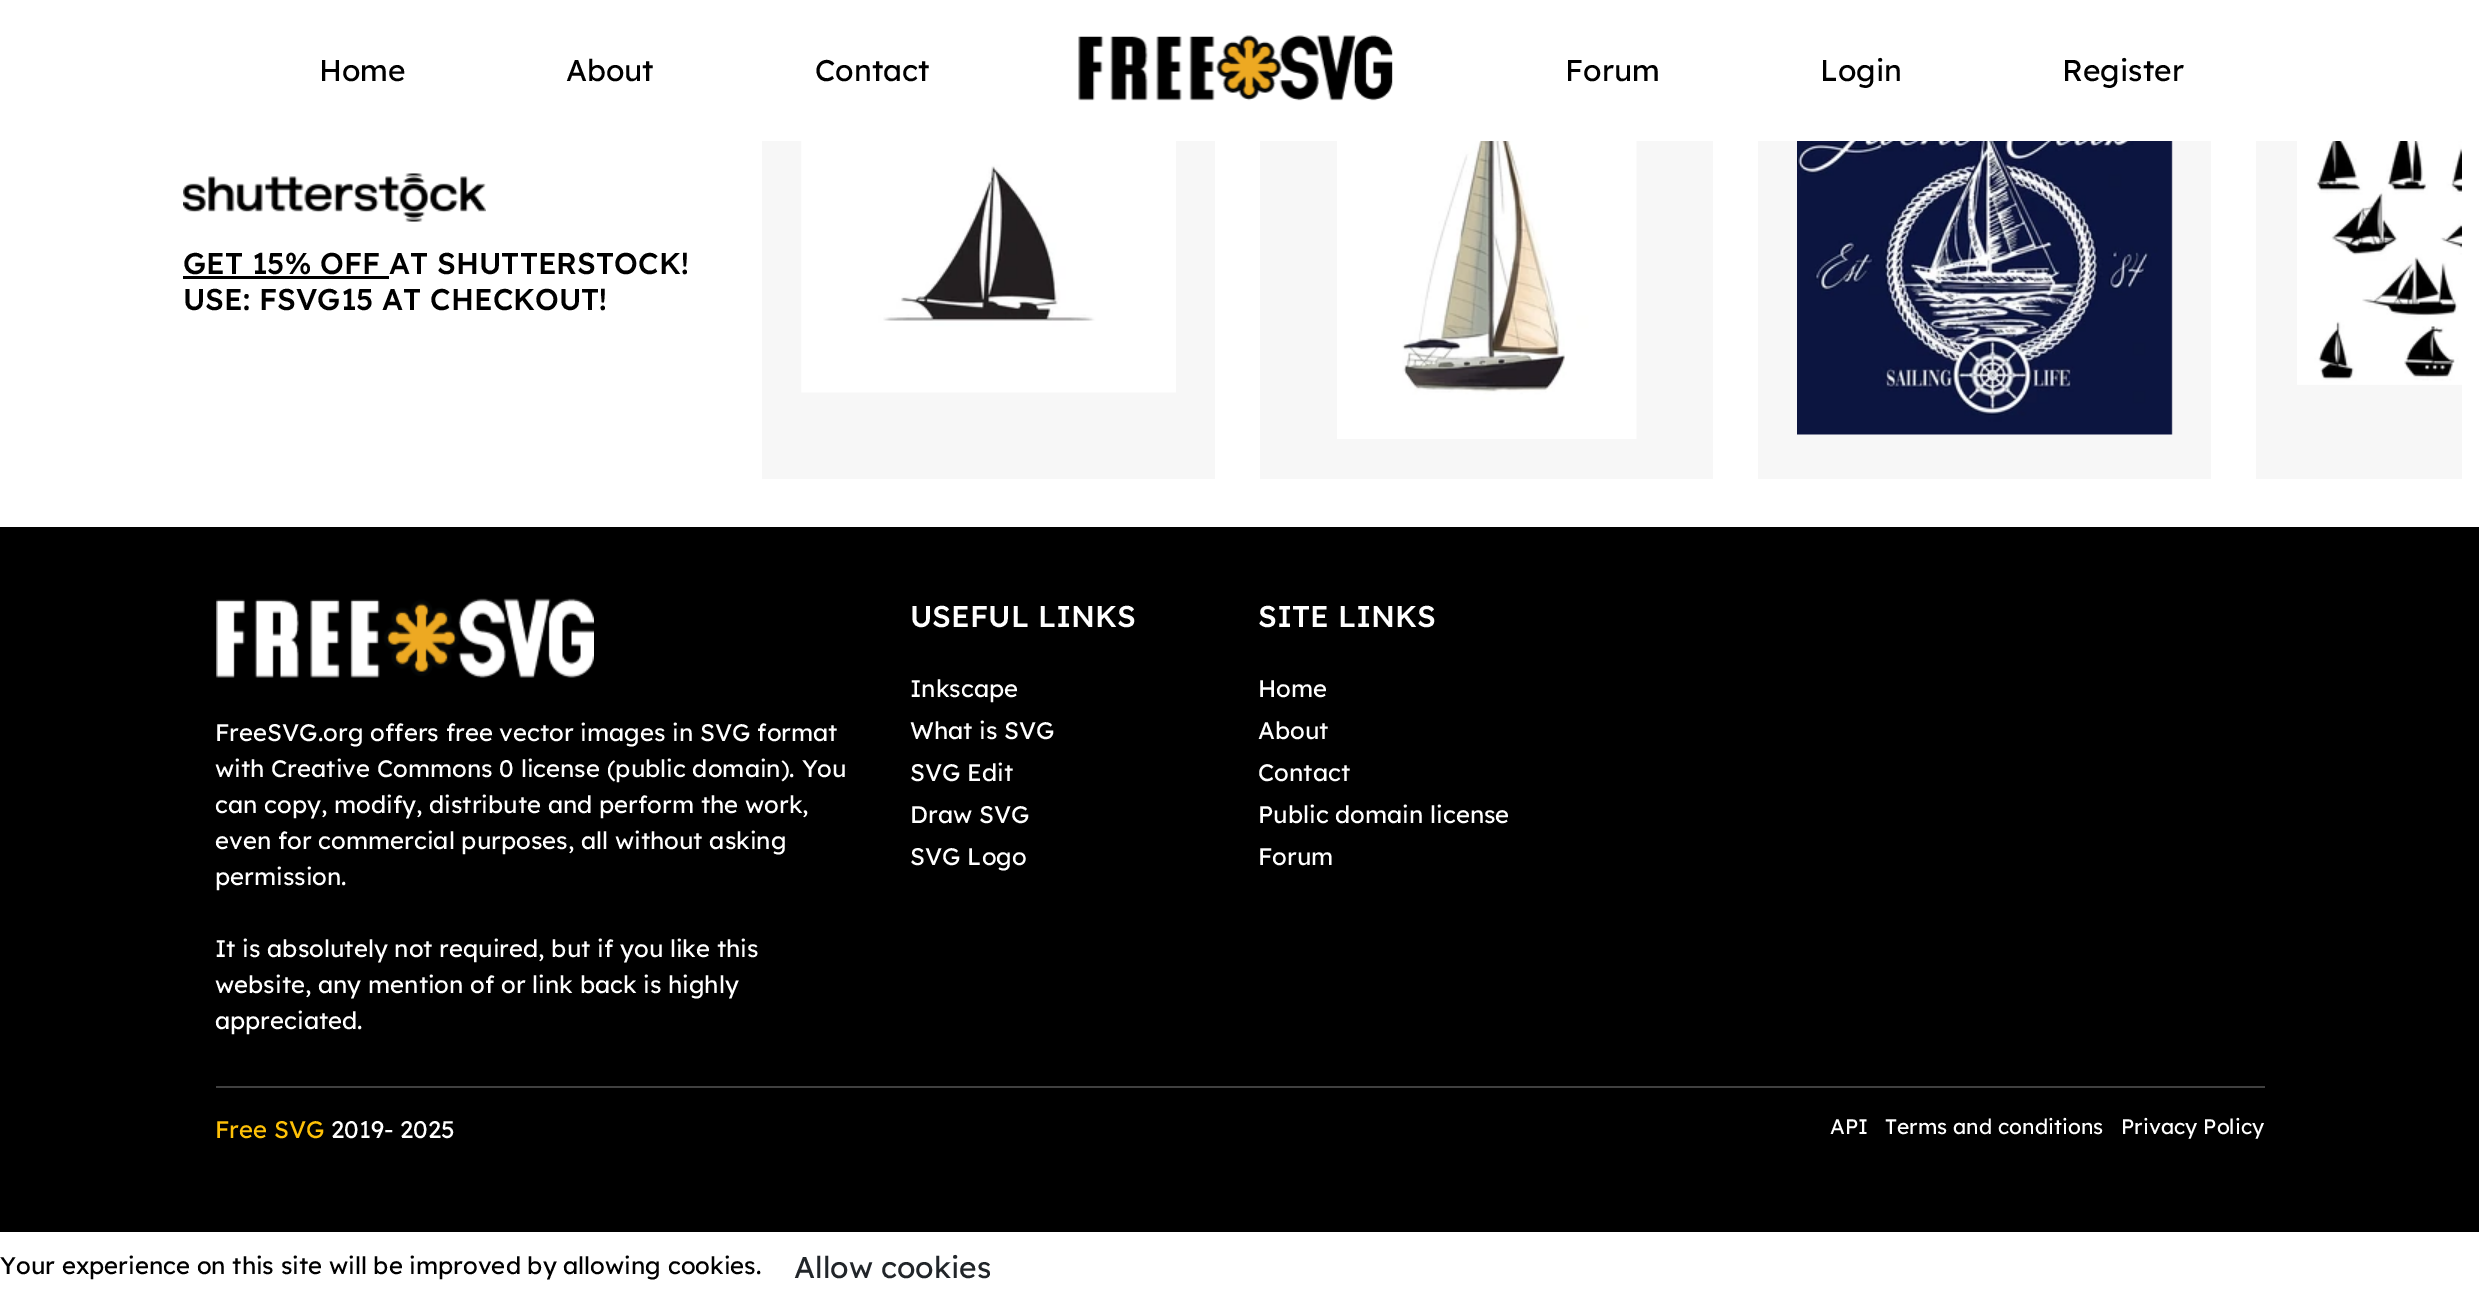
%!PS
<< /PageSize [2479 1303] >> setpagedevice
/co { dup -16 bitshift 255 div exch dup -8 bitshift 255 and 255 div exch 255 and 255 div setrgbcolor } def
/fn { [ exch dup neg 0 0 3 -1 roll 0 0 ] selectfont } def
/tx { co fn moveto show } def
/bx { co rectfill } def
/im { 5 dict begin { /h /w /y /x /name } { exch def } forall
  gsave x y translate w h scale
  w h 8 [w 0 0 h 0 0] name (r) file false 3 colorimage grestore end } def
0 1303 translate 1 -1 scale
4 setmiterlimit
0 0 2479 1303 16#FFFFFF bx
(media/1.raw) 1078 35 315 66 im
(media/2.raw) 183 173 303 49 im
183 276 206 3 16#000000 bx
762 141 453 338 16#F7F7F7 bx
(media/3.raw) 801 141 375 252 im
1260 141 453 338 16#F7F7F7 bx
(media/4.raw) 1337 141 300 298 im
1758 141 453 338 16#F7F7F7 bx
(media/5.raw) 1797 141 376 294 im
2256 141 206 338 16#F7F7F7 bx
(media/6.raw) 2297 141 165 244 im
0 527 2479 705 16#000000 bx
(media/7.raw) 216 598 378 80 im
216 1086 2049 2 16#404040 bx
(Home) 319 81 /Lexend-Regular 30 16#000000 tx
(About) 566 81 /Lexend-Regular 30 16#000000 tx
(Contact) 815 81 /Lexend-Regular 30 16#000000 tx
(Forum) 1565 81 /Lexend-Regular 30 16#000000 tx
(Login) 1820 81 /Lexend-Regular 30 16#000000 tx
(Register) 2062 81 /Lexend-Regular 30 16#000000 tx
(GET 15% OFF AT SHUTTERSTOCK!) 183 274 /Lexend-Medium 30 16#000000 tx
(USE: FSVG15 AT CHECKOUT!) 183 310 /Lexend-Medium 30 16#000000 tx
(FreeSVG.org offers free vector images in SVG format) 215 741 /Lexend-Regular 24 16#FFFFFF tx
(with Creative Commons 0 license \(public domain\). You) 215 777 /Lexend-Regular 24 16#FFFFFF tx
(can copy, modify, distribute and perform the work,) 215 813 /Lexend-Regular 24 16#FFFFFF tx
(even for commercial purposes, all without asking) 215 849 /Lexend-Regular 24 16#FFFFFF tx
(permission.) 215 885 /Lexend-Regular 24 16#FFFFFF tx
(It is absolutely not required, but if you like this) 215 957 /Lexend-Regular 24 16#FFFFFF tx
(website, any mention of or link back is highly) 215 993 /Lexend-Regular 24 16#FFFFFF tx
(appreciated.) 215 1029 /Lexend-Regular 24 16#FFFFFF tx
(USEFUL LINKS) 910 627 /Lexend-Medium 30 16#FFFFFF tx
(Inkscape) 910 697 /Lexend-Regular 24 16#FFFFFF tx
(What is SVG) 910 739 /Lexend-Regular 24 16#FFFFFF tx
(SVG Edit) 910 781 /Lexend-Regular 24 16#FFFFFF tx
(Draw SVG) 910 823 /Lexend-Regular 24 16#FFFFFF tx
(SVG Logo) 910 865 /Lexend-Regular 24 16#FFFFFF tx
(SITE LINKS) 1258 627 /Lexend-Medium 30 16#FFFFFF tx
(Home) 1258 697 /Lexend-Regular 24 16#FFFFFF tx
(About) 1258 739 /Lexend-Regular 24 16#FFFFFF tx
(Contact) 1258 781 /Lexend-Regular 24 16#FFFFFF tx
(Public domain license) 1258 823 /Lexend-Regular 24 16#FFFFFF tx
(Forum) 1258 865 /Lexend-Regular 24 16#FFFFFF tx
(Free SVG) 215 1138 /Lexend-Regular 24 16#FFC107 tx
(2019- 2025) 331 1138 /Lexend-Regular 24 16#FFFFFF tx
(API) 1830 1134 /Lexend-Regular 21 16#FFFFFF tx
(Terms and conditions) 1885 1134 /Lexend-Regular 21 16#FFFFFF tx
(Privacy Policy) 2121 1134 /Lexend-Regular 21 16#FFFFFF tx
(Your experience on this site will be improved by allowing cookies.) 0 1274 /Lexend-Regular 24 16#000000 tx
(Allow cookies) 794 1278 /Lexend-Regular 30 16#212529 tx
showpage
